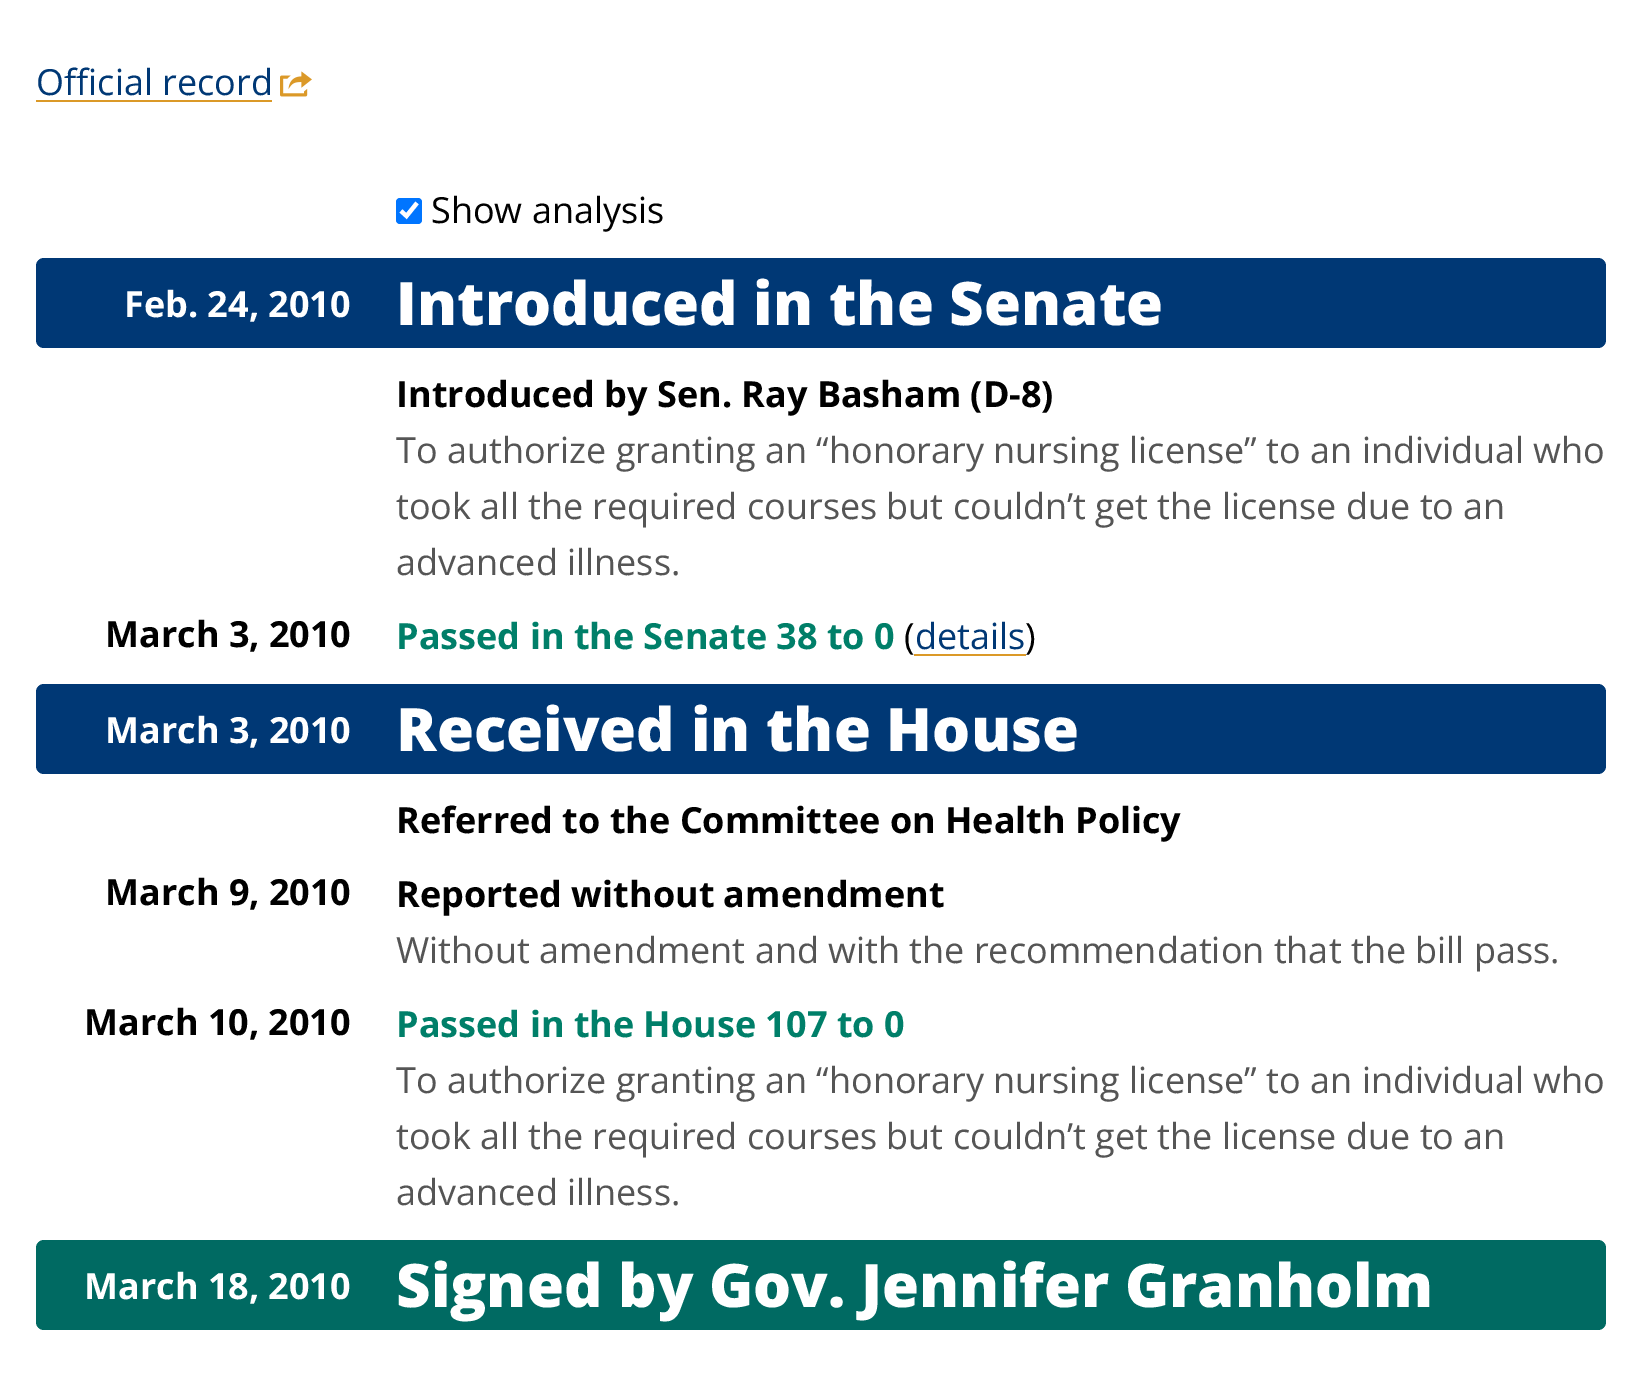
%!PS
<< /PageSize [1641 1396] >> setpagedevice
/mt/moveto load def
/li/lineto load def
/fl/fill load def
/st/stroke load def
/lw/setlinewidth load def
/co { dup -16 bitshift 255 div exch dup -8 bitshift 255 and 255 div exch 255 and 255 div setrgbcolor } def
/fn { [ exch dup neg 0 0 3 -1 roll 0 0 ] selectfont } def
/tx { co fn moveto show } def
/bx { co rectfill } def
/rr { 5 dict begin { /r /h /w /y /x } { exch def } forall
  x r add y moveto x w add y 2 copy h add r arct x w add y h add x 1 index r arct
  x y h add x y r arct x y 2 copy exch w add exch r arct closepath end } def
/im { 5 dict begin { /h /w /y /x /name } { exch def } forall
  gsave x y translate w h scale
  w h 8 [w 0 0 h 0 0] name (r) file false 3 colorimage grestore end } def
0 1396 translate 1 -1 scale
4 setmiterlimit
0 0 1641 1396 16#FFFFFF bx
36 100 236 2 16#DB9928 bx
(media/1.raw) 280 71 32 26 im
16#0075FF co
396 198 26 26 4 rr fl
16#FFFFFF co
4.2 lw
401 211 mt 406.5 216 li 417 203 li st
16#003875 co
36 258 1570 90 8 rr fl
914 654 112 2 16#DB9928 bx
16#003875 co
36 684 1570 90 8 rr fl
16#006A62 co
36 1240 1570 90 8 rr fl
(Official record) 36 95 /OpenSans-Regular 36 16#003875 tx
(Show analysis) 431 223 /OpenSans-Regular 36 16#000000 tx
(Feb. 24, 2010) 124 317 /OpenSans-Bold 36 16#FFFFFF tx
(Introduced in the Senate) 396 325 /OpenSans-ExtraBold 60 16#FFFFFF tx
(Introduced by Sen. Ray Basham \(D-8\)) 396 407 /OpenSans-Bold 36 16#000000 tx
(To authorize granting an “honorary nursing license” to an individual who) 396 463 /OpenSans-Regular 36 16#555555 tx
(took all the required courses but couldn’t get the license due to an) 396 519 /OpenSans-Regular 36 16#555555 tx
(advanced illness.) 396 575 /OpenSans-Regular 36 16#555555 tx
(March 3, 2010) 105 647 /OpenSans-Bold 36 16#000000 tx
(Passed in the Senate 38 to 0) 396 649 /OpenSans-Bold 36 16#007F69 tx
(\() 904 649 /OpenSans-Regular 36 16#000000 tx
(details) 915 649 /OpenSans-Regular 36 16#003875 tx
(\)) 1025 649 /OpenSans-Regular 36 16#000000 tx
(March 3, 2010) 105 743 /OpenSans-Bold 36 16#FFFFFF tx
(Received in the House) 396 751 /OpenSans-ExtraBold 60 16#FFFFFF tx
(Referred to the Committee on Health Policy) 396 833 /OpenSans-Bold 36 16#000000 tx
(March 9, 2010) 105 905 /OpenSans-Bold 36 16#000000 tx
(Reported without amendment) 396 907 /OpenSans-Bold 36 16#000000 tx
(Without amendment and with the recommendation that the bill pass.) 396 963 /OpenSans-Regular 36 16#555555 tx
(March 10, 2010) 84 1035 /OpenSans-Bold 36 16#000000 tx
(Passed in the House 107 to 0) 396 1037 /OpenSans-Bold 36 16#007F69 tx
(To authorize granting an “honorary nursing license” to an individual who) 396 1093 /OpenSans-Regular 36 16#555555 tx
(took all the required courses but couldn’t get the license due to an) 396 1149 /OpenSans-Regular 36 16#555555 tx
(advanced illness.) 396 1205 /OpenSans-Regular 36 16#555555 tx
(March 18, 2010) 84 1299 /OpenSans-Bold 36 16#FFFFFF tx
(Signed by Gov. Jennifer Granholm) 396 1307 /OpenSans-ExtraBold 60 16#FFFFFF tx
showpage
